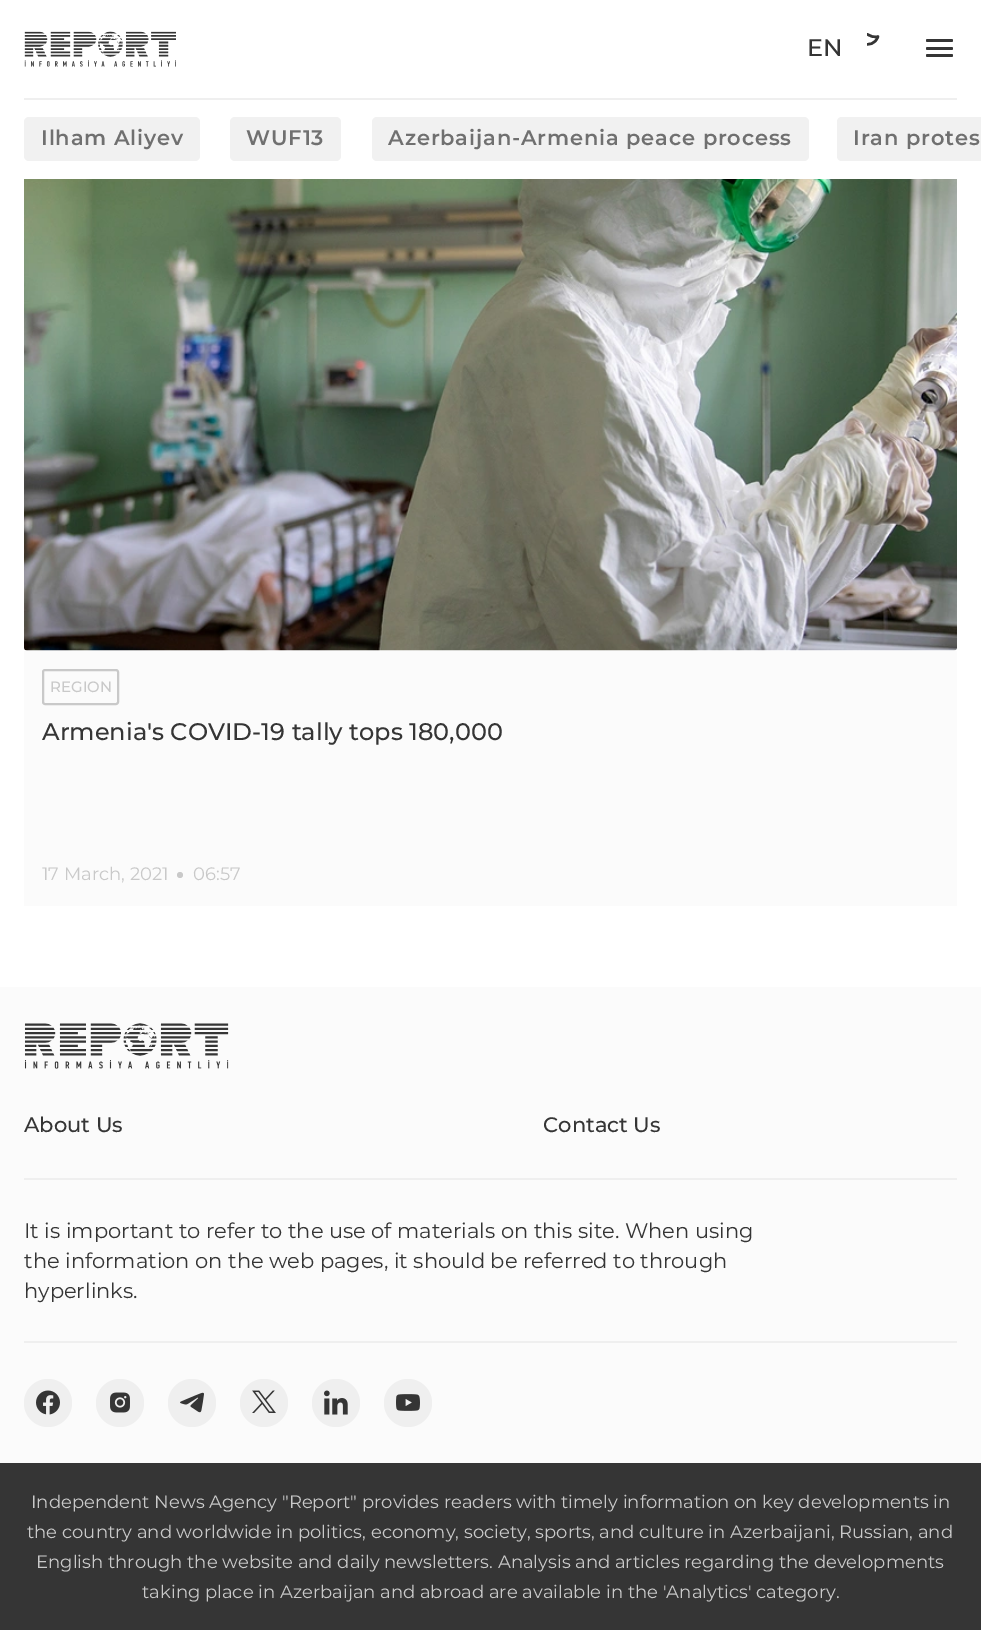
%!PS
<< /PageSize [981 1630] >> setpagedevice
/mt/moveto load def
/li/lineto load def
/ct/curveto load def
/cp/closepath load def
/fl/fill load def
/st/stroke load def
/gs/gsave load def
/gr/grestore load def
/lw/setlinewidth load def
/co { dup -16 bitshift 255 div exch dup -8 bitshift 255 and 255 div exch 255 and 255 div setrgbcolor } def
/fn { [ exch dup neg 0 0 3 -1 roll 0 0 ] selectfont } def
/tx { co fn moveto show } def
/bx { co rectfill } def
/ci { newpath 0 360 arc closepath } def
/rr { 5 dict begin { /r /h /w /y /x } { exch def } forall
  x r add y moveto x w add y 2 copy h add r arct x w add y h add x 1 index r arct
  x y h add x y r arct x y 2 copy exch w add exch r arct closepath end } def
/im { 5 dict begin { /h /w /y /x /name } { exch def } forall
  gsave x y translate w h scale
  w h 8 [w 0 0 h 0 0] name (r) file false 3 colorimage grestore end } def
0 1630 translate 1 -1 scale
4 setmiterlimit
0 0 981 1630 16#FFFFFF bx
24 98 933 2 16#EFEFEF bx
(media/1.raw) 24 31 152 36 im
gs
867 33 30 30 rectclip
16#353535 co
2.5 lw
1 setlinecap
1 setlinejoin
863 25.5 mt 863 33 870.5 38.5 878 36.5 ct 873 51.5 850.5 43 856.5 28.5 ct 858 25.5 860.5 23 863.5 22 ct cp st
gr
16#353535 co
926 47 27 3 1.5 rr fl
926 39 27 3 1.5 rr fl
926 54 27 3 1.5 rr fl
16#F1F1F1 co
24 117 176 44 5 rr fl
230 117 111 44 5 rr fl
372 117 437 44 5 rr fl
842 117 mt 981 117 li 981 161 li 842 161 li 839 161 837 159 837 156 ct 837 122 li 837 119 839 117 842 117 ct cp fl
(media/2.raw) 24 179 933 472 im
24 651 933 255 16#FBFBFB bx
16#C9C9C9 co
2 lw
43 670 75 34 2 rr st
180 875 3 ci fl
0 987 981 476 16#FBFBFB bx
24 1178 933 2 16#EFEFEF bx
(media/3.raw) 24 1023 205 46 im
24 1341 933 2 16#EFEFEF bx
48 1403 24 ci fl
(media/4.raw) 36 1390 24 25 im
120 1403 24 ci fl
(media/5.raw) 110 1392 20 21 im
192 1403 24 ci fl
(media/6.raw) 180 1392 24 21 im
264 1403 24 ci fl
(media/7.raw) 252 1390 24 23 im
336 1403 24 ci fl
(media/8.raw) 324 1390 24 25 im
408 1403 24 ci fl
(media/9.raw) 396 1394 24 17 im
0 1463 981 167 16#353535 bx
(EN) 807 56 /Montserrat-Medium 24 16#353535 tx
/Montserrat-SemiBold 21 fn
16#707070 co
41 145 mt .85 0 (Ilham Aliyev) ashow
246 145 mt .85 0 (WUF13) ashow
388 145 mt .85 0 (Azerbaijan-Armenia peace process) ashow
853 145 mt .85 0 (Iran protes) ashow
(REGION) 50 692 /Montserrat-Medium 15 16#C9C9C9 tx
(Armenia's COVID-19 tally tops 180,000) 42 740 /Montserrat-Medium 24 16#353535 tx
(17 March, 2021) 42 880 /Montserrat-Regular 18 16#C9C9C9 tx
(06:57) 193 880 /Montserrat-Regular 18 16#C9C9C9 tx
(About Us) 24 1132 /Montserrat-Medium 21 16#353535 tx
(Contact Us) 543 1132 /Montserrat-Medium 21 16#353535 tx
(It is important to refer to the use of materials on this site. When using) 24 1238 /Montserrat-Regular 21 16#353535 tx
(the information on the web pages, it should be referred to through) 24 1268 /Montserrat-Regular 21 16#353535 tx
(hyperlinks.) 24 1298 /Montserrat-Regular 21 16#353535 tx
(Independent News Agency "Report" provides readers with timely information on key developments in) 31 1508 /Montserrat-Regular 18 16#C9C9C9 tx
(the country and worldwide in politics, economy, society, sports, and culture in Azerbaijani, Russian, and) 27 1538 /Montserrat-Regular 18 16#C9C9C9 tx
(English through the website and daily newsletters. Analysis and articles regarding the developments) 36 1568 /Montserrat-Regular 18 16#C9C9C9 tx
(taking place in Azerbaijan and abroad are available in the 'Analytics' category.) 142 1598 /Montserrat-Regular 18 16#C9C9C9 tx
showpage
